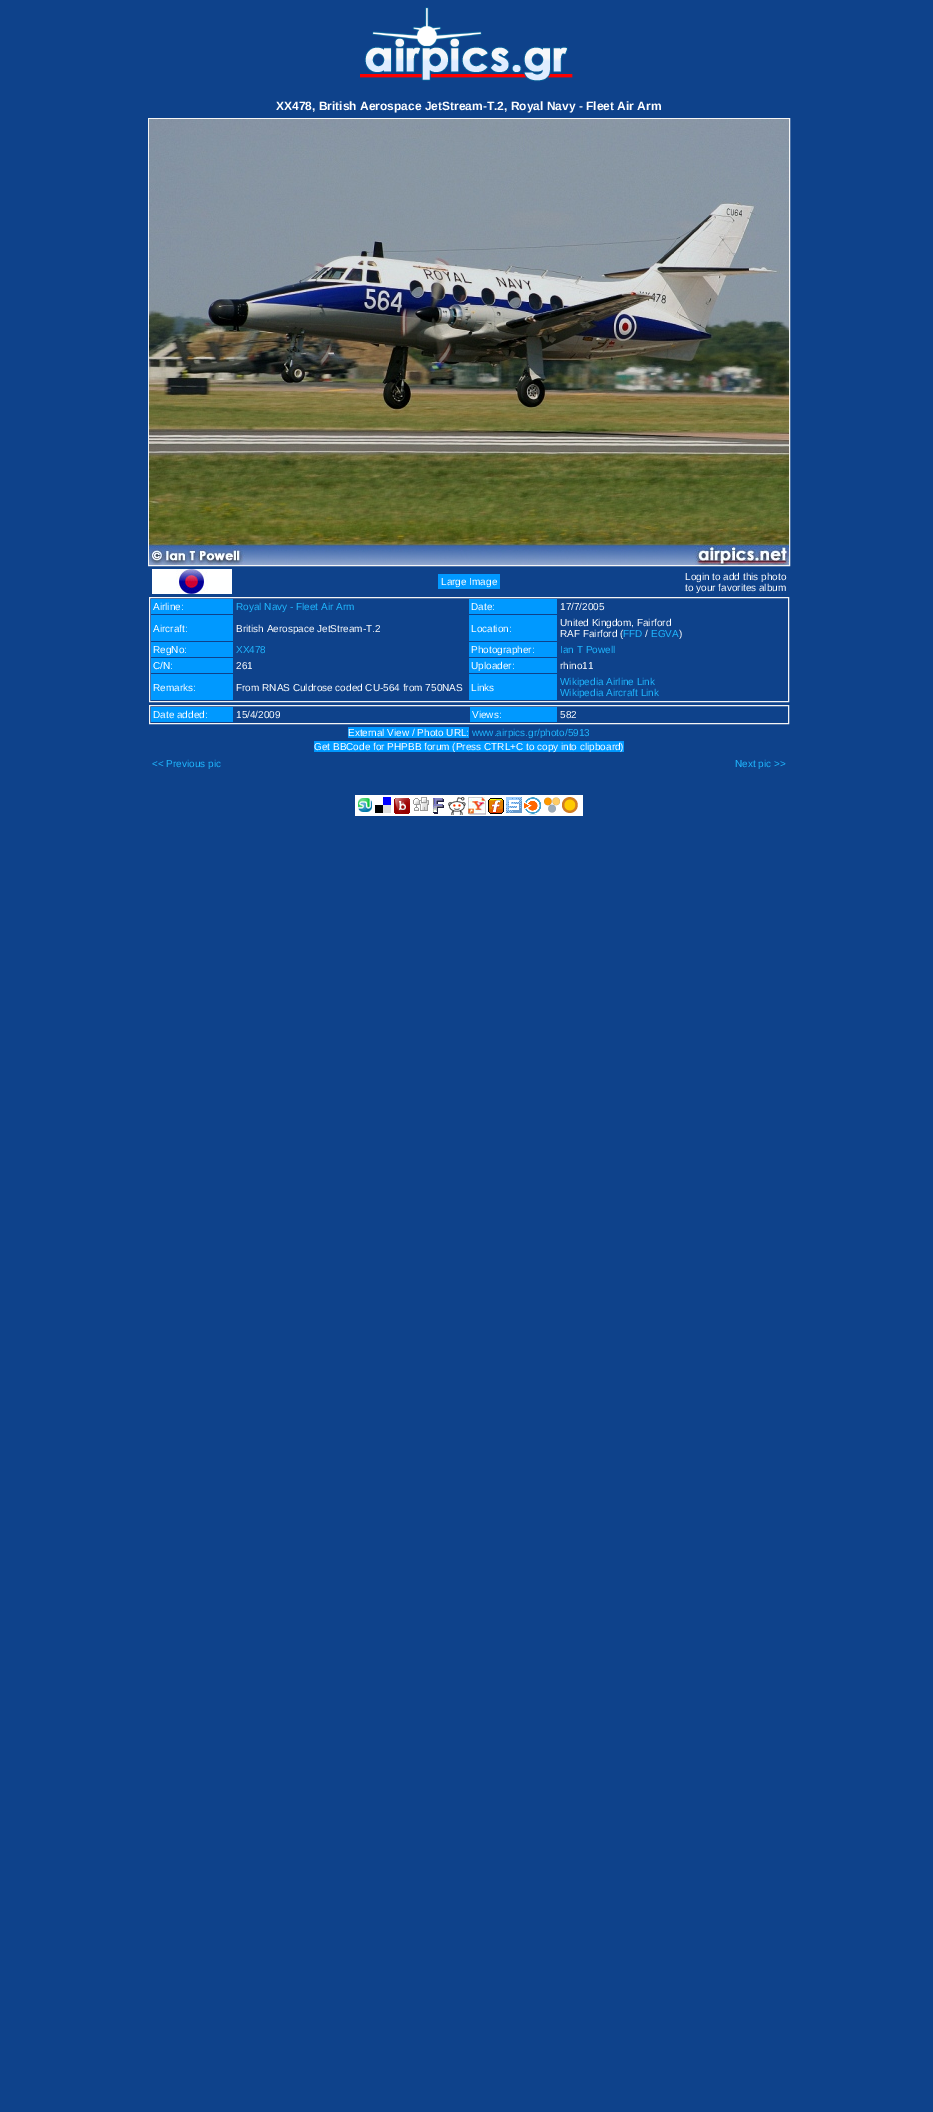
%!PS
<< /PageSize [933 2112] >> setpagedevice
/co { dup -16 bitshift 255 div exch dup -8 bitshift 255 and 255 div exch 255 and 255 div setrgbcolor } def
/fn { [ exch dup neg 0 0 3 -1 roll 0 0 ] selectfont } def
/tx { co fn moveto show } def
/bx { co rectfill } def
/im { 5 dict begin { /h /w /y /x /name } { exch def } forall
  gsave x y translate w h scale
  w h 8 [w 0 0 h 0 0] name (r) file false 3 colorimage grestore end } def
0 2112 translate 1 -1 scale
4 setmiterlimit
0 0 933 2112 16#0E428B bx
(media/1.raw) 360 7 213 75 im
16#F5F5F5 co
148.5 118.5 641 447 rectstroke
(media/2.raw) 149 119 640 446 im
(media/3.raw) 152 569 80 25 im
438 574 62 15 16#0099FF bx
16#F5F5F5 co
149.5 597.5 639 104 rectstroke
151 599 82 15 16#0099FF bx
469 599 88 15 16#0099FF bx
151 615 82 26 16#0099FF bx
469 615 88 26 16#0099FF bx
151 642 82 15 16#0099FF bx
469 642 88 15 16#0099FF bx
151 658 82 15 16#0099FF bx
469 658 88 15 16#0099FF bx
151 674 82 26 16#0099FF bx
469 674 88 26 16#0099FF bx
16#F5F5F5 co
149.5 705.5 639 18 rectstroke
151 707 82 15 16#0099FF bx
470 707 87 15 16#0099FF bx
348 727 121 11 16#0099FF bx
314 741 310 11 16#0099FF bx
355 795 228 21 16#FFFFFF bx
(media/4.raw) 358 798 14 14 im
(media/5.raw) 375 797 16 16 im
(media/6.raw) 394 798 16 16 im
(media/7.raw) 413 797 16 14 im
(media/8.raw) 433 798 11 16 im
(media/9.raw) 448 797 18 18 im
(media/10.raw) 468 797 18 18 im
(media/11.raw) 488 798 16 16 im
(media/12.raw) 506 797 16 16 im
(media/13.raw) 524 797 17 18 im
(media/14.raw) 544 797 16 16 im
(media/15.raw) 562 797 16 16 im
(XX478, British Aerospace JetStream-T.2, Royal Navy - Fleet Air Arm) 276 110 /LiberationSans-Bold 12 16#FFFFFF tx
(Large Image) 441 585 /LiberationSans-Regular 10 16#FFFFFF tx
(Login to add this photo) 685 580 /LiberationSans-Regular 10 16#FFFFFF tx
(to your favorites album) 685 591 /LiberationSans-Regular 10 16#FFFFFF tx
(Airline:) 153 610 /LiberationSans-Regular 10 16#FFFFFF tx
(Royal Navy - Fleet Air Arm) 236 610 /LiberationSans-Regular 10 16#1FB7FF tx
(Date:) 471 610 /LiberationSans-Regular 10 16#FFFFFF tx
(17/7/2005) 560 610 /LiberationSans-Regular 10 16#FFFFFF tx
(Aircraft:) 153 632 /LiberationSans-Regular 10 16#FFFFFF tx
(British Aerospace JetStream-T.2) 236 632 /LiberationSans-Regular 10 16#FFFFFF tx
(Location:) 471 632 /LiberationSans-Regular 10 16#FFFFFF tx
(United Kingdom, Fairford) 560 626 /LiberationSans-Regular 10 16#FFFFFF tx
(RAF Fairford \() 560 637 /LiberationSans-Regular 10 16#FFFFFF tx
(FFD) 623 637 /LiberationSans-Regular 10 16#1FB7FF tx
(/) 645 637 /LiberationSans-Regular 10 16#FFFFFF tx
(EGVA) 651 637 /LiberationSans-Regular 10 16#1FB7FF tx
(\)) 679 637 /LiberationSans-Regular 10 16#FFFFFF tx
(RegNo:) 153 653 /LiberationSans-Regular 10 16#FFFFFF tx
(XX478) 236 653 /LiberationSans-Regular 10 16#1FB7FF tx
(Photographer:) 471 653 /LiberationSans-Regular 10 16#FFFFFF tx
(Ian T Powell) 560 653 /LiberationSans-Regular 10 16#1FB7FF tx
(C/N:) 153 669 /LiberationSans-Regular 10 16#FFFFFF tx
(261) 236 669 /LiberationSans-Regular 10 16#FFFFFF tx
(Uploader:) 471 669 /LiberationSans-Regular 10 16#FFFFFF tx
(rhino11) 560 669 /LiberationSans-Regular 10 16#FFFFFF tx
(Remarks:) 153 691 /LiberationSans-Regular 10 16#FFFFFF tx
(From RNAS Culdrose coded CU-564 from 750NAS) 236 691 /LiberationSans-Regular 10 16#FFFFFF tx
(Links) 471 691 /LiberationSans-Regular 10 16#FFFFFF tx
(Wikipedia Airline Link) 560 685 /LiberationSans-Regular 10 16#1FB7FF tx
(Wikipedia Aircraft Link) 560 696 /LiberationSans-Regular 10 16#1FB7FF tx
(Date added:) 153 718 /LiberationSans-Regular 10 16#FFFFFF tx
(15/4/2009) 236 718 /LiberationSans-Regular 10 16#FFFFFF tx
(Views:) 472 718 /LiberationSans-Regular 10 16#FFFFFF tx
(582) 560 718 /LiberationSans-Regular 10 16#FFFFFF tx
(External View / Photo URL:) 348 736 /LiberationSans-Regular 10 16#FFFFFF tx
(www.airpics.gr/photo/5913) 472 736 /LiberationSans-Regular 10 16#1FB7FF tx
(Get BBCode for PHPBB forum \(Press CTRL+C to copy into clipboard\)) 314 750 /LiberationSans-Regular 10 16#FFFFFF tx
(<< Previous pic) 152 767 /LiberationSans-Regular 10 16#1FB7FF tx
(Next pic >>) 735 767 /LiberationSans-Regular 10 16#1FB7FF tx
showpage
